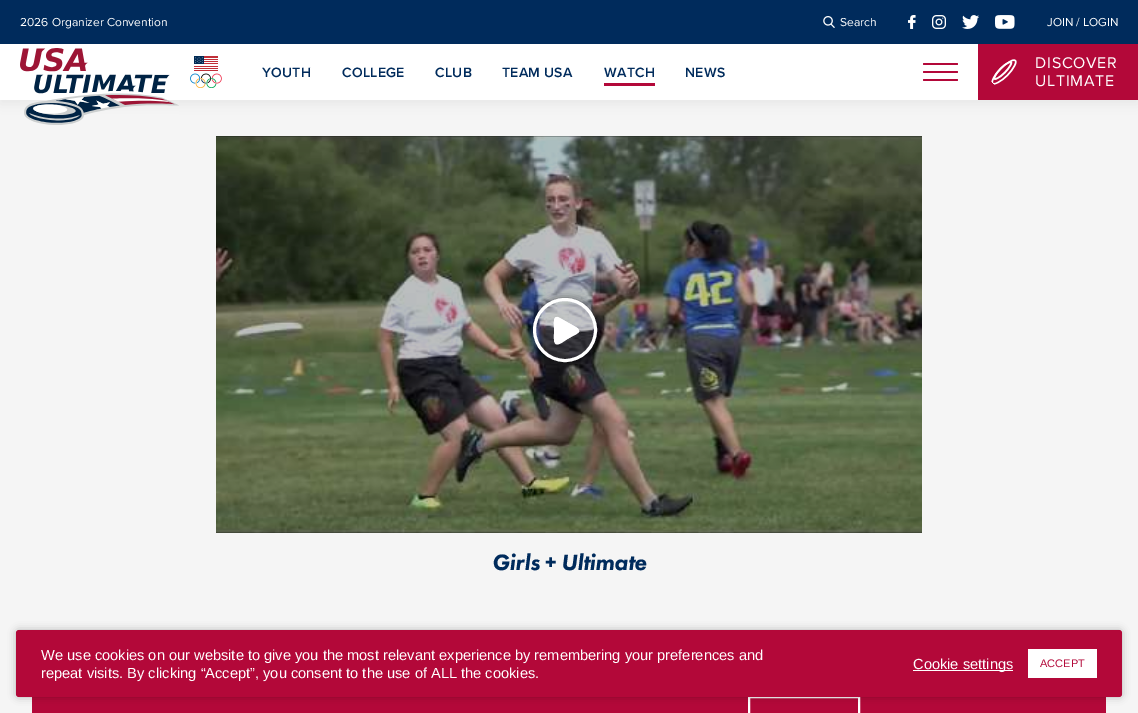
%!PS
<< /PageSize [1138 713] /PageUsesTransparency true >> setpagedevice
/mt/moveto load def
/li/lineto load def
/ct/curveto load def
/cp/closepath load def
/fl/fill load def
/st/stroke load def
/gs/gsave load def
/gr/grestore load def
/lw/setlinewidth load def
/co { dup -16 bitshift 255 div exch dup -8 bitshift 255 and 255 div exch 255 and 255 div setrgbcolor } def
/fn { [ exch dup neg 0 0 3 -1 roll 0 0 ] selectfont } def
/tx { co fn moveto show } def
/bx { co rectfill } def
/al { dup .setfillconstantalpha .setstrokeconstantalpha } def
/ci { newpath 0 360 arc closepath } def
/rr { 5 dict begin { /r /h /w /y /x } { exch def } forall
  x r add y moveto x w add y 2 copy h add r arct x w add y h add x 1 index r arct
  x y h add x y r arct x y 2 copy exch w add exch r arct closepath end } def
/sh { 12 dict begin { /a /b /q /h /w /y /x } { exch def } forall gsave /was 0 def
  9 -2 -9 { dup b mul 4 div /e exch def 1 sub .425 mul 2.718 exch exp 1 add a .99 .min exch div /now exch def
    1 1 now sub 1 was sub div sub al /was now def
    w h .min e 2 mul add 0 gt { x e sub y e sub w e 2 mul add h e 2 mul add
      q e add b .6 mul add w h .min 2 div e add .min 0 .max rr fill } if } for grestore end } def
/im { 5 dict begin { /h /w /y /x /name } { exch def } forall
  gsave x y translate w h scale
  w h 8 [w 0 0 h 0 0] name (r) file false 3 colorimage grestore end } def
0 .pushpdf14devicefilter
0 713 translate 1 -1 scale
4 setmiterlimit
0 0 1138 713 16#F5F5F5 bx
16#000000 co
0 4 1138 100 0 6 .05 sh
0 44 978 56 16#FFFFFF bx
0 0 1138 44 16#002B5C bx
(media/1.raw) 823 16 12 12 im
(media/2.raw) 908 15 8 14 im
(media/3.raw) 932 15 14 14 im
(media/4.raw) 962 15 17 14 im
(media/5.raw) 995 15 20 14 im
(media/6.raw) 20 48 159 77 im
(media/7.raw) 190 56 32 32 im
604 83 51 3 16#B30839 bx
923 71 35 2 1 rr fl
923 63 35 2 1 rr fl
923 79 35 2 1 rr fl
978 44 160 56 16#B30839 bx
(media/8.raw) 991 59 26 26 im
(media/9.raw) 216 136 706 397 im
gs
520 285 mt 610 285 li 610 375 li 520 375 li cp 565 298 mt 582.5 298 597 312.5 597 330 ct 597 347.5 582.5 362 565 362 ct 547.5 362 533 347.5 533 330 ct 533 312.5 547.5 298 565 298 ct cp eoclip newpath
16#000000 co
533 298 64 64 32 4 .5 sh
gr
0.1 al
16#FFFFFF co
565 330 30.5 ci fl
1 al
3 lw
565 330 30.5 ci st
559.5 318 mt 576.5 327.5 li 582 331.5 579 333 571 337 ct 565 340.5 560 341.5 554.5 342 ct 554 324 li 554 322 553.5 316.5 557.5 317 ct cp fl
559.5 318 mt 578 328.5 li 576 331.5 573.5 334.5 571 336.5 ct 563 342 li 553 348.5 554 340.5 554 334 ct 554 327.5 li 554 324.5 553 314 559.5 318 ct cp fl
32 697 1074 16 16#B30839 bx
16#FFFFFF co
2 lw
749 697 110 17 rectstroke
16#000000 co
16 630 1106 67 3 4 .25 sh
16#B30839 co
16 630 1106 67 3 rr fl
913 670 100 1 16#FFFFFF bx
1028 649 69 29 16#FFFFFF bx
(2026 Organizer Convention) 20 26 /ProximaNova-Regular 12 16#FFFFFF tx
(Search) 840 26 /ProximaNova-Regular 12 16#FFFFFF tx
(JOIN / LOGIN) 1047 26 /ProximaNova-Regular 12 16#FFFFFF tx
/ProximaNova-SemiBold 14 fn
16#002B5C co
262 77 mt .25 0 (YOUTH) ashow
342 77 mt .25 0 (COLLEGE) ashow
435 77 mt .25 0 (CLUB) ashow
502 77 mt .25 0 (TEAM USA) ashow
604 77 mt .25 0 (WATCH) ashow
685 77 mt .25 0 (NEWS) ashow
/ProximaNova-Regular 16 fn
16#FFFFFF co
1035 68 mt .75 0 (DISCOVER) ashow
1035 86 mt .75 0 (ULTIMATE) ashow
/FuturaPT-BlackItalic 23 fn
16#002B5C co
492 570 mt -.3 0 (Girls + Ultimate) ashow
(We use cookies on our website to give you the most relevant experience by remembering your preferences and) 41 660 /LiberationSans-Regular 14.65 16#FFFFFF tx
(repeat visits. By clicking “Accept”, you consent to the use of ALL the cookies.) 41 678 /LiberationSans-Regular 14.65 16#FFFFFF tx
(Cookie settings) 913 669 /LiberationSans-Regular 14.65 16#FFFFFF tx
(ACCEPT) 1040 667 /LiberationSans-Regular 11 16#B30839 tx
.poppdf14devicefilter showpage
